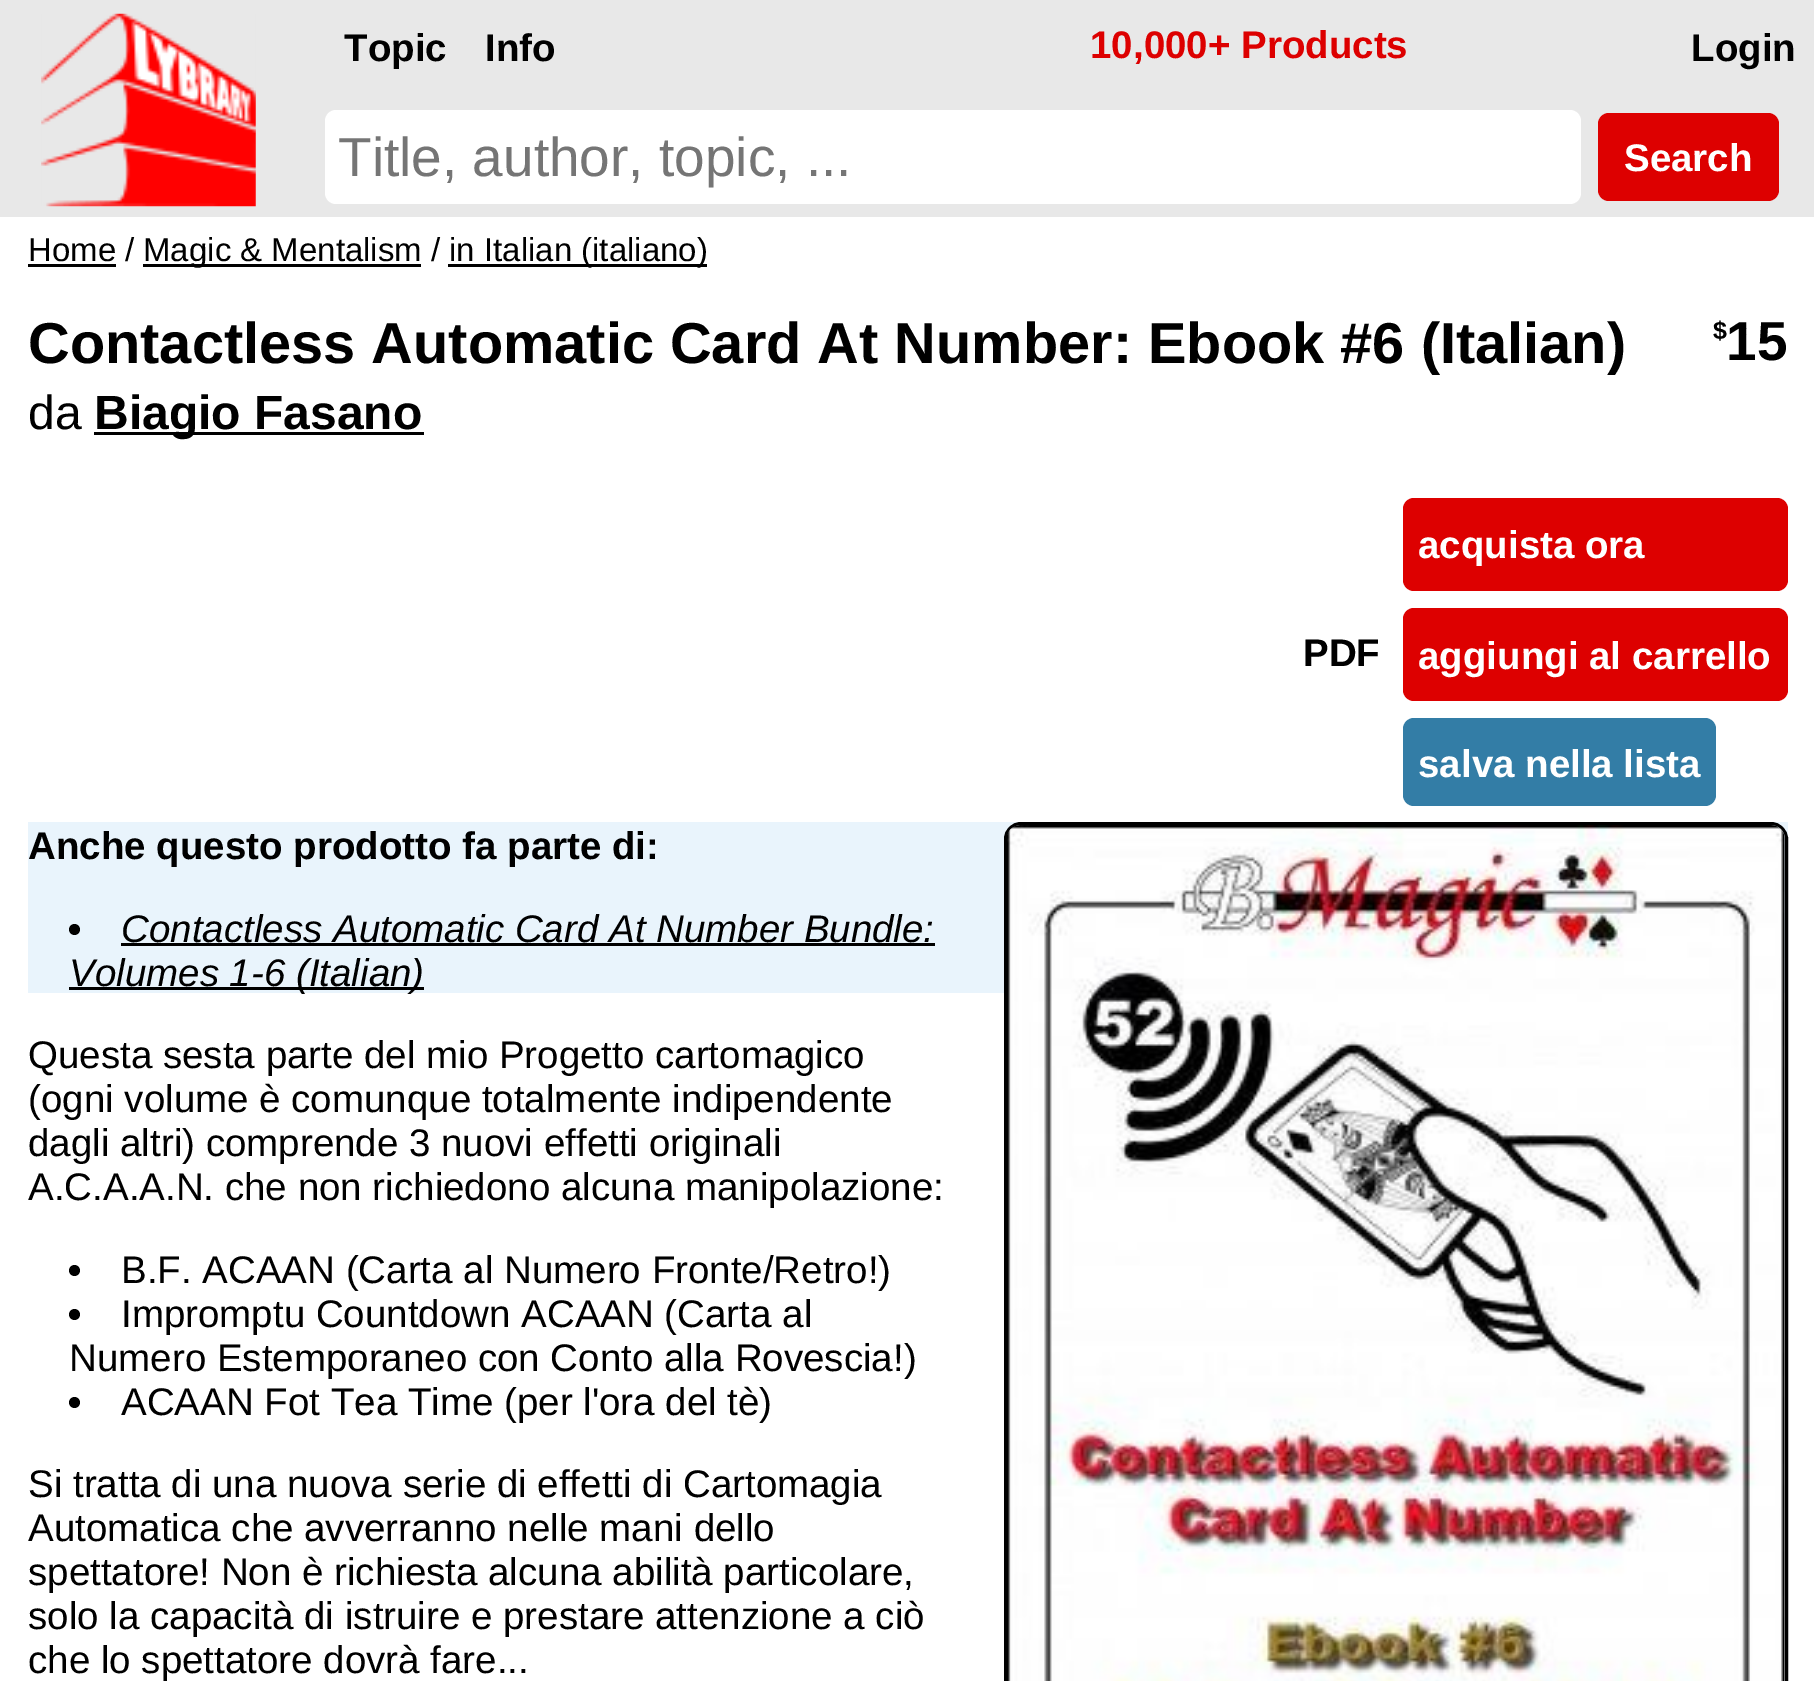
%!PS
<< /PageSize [1814 1681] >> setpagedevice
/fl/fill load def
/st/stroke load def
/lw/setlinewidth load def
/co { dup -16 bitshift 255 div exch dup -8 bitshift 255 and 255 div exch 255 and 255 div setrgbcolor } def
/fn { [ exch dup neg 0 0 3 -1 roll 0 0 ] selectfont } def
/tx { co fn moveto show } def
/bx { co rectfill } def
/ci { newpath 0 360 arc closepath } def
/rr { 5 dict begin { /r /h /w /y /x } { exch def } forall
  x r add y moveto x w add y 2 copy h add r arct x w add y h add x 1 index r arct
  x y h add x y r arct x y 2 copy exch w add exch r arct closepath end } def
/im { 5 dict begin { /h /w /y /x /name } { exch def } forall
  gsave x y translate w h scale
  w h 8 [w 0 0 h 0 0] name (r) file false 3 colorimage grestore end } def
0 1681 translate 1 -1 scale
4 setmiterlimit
0 0 1814 1681 16#E8E8E8 bx
(media/1.raw) 41 13 215 194 im
16#FFFFFF co
325 110 1256 94 11 rr fl
16#DD0000 co
1598 113 181 88 11 rr fl
0 217 1814 1464 16#FFFFFF bx
28 264 88 3 16#000000 bx
143 264 278 3 16#000000 bx
448 264 259 3 16#000000 bx
94 432 330 3 16#000000 bx
16#DD0000 co
1403 498 385 93 11 rr fl
1403 608 385 93 11 rr fl
16#337DA6 co
1403 718 313 88 11 rr fl
28 822 1760 171 16#E9F4FC bx
16#000000 co
74.5 929.5 5.5 ci fl
121 943 814 3 16#000000 bx
69 987 355 3 16#000000 bx
3 lw
1005.5 823.5 781 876 15.5 rr st
(media/2.raw) 1007 825 778 856 im
74.5 1270.5 5.5 ci fl
74.5 1314.5 5.5 ci fl
74.5 1402.5 5.5 ci fl
(Topic) 344 61 /LiberationSans-Bold 38.5 16#000000 tx
(Info) 485 61 /LiberationSans-Bold 38.5 16#000000 tx
(10,000+ Products) 1090 58 /LiberationSans-Bold 38.5 16#DD0000 tx
(Login) 1691 61 /LiberationSans-Bold 38.5 16#000000 tx
(Title, author, topic, ...) 338 176 /LiberationSans-Regular 55 16#757575 tx
(Search) 1624 171 /LiberationSans-Bold 38.5 16#FFFFFF tx
(Home /) 28 261 /LiberationSans-Regular 33 16#000000 tx
(Magic & Mentalism /) 143 261 /LiberationSans-Regular 33 16#000000 tx
(in Italian \(italiano\)) 449 261 /LiberationSans-Regular 33 16#000000 tx
(Contactless Automatic Card At Number: Ebook #6 \(Italian\)) 28 363 /LiberationSans-Bold 57.75 16#000000 tx
(da) 28 429 /LiberationSans-Regular 48 16#000000 tx
(Biagio Fasano) 94 429 /LiberationSans-Bold 48 16#000000 tx
($) 1713 339 /LiberationSans-Bold 25 16#000000 tx
(15) 1726 360 /LiberationSans-Bold 55 16#000000 tx
(PDF) 1303 666 /LiberationSans-Bold 38.5 16#000000 tx
(acquista ora) 1418 558 /LiberationSans-Bold 38.5 16#FFFFFF tx
(aggiungi al carrello) 1418 669 /LiberationSans-Bold 38.5 16#FFFFFF tx
(salva nella lista) 1418 777 /LiberationSans-Bold 38.5 16#FFFFFF tx
(Anche questo prodotto fa parte di:) 28 859 /LiberationSans-Bold 38.5 16#000000 tx
(Contactless Automatic Card At Number Bundle:) 121 942 /LiberationSans-Italic 38.5 16#000000 tx
(Volumes 1-6 \(Italian\)) 69 986 /LiberationSans-Italic 38.5 16#000000 tx
(Questa sesta parte del mio Progetto cartomagico) 28 1068 /LiberationSans-Regular 38.5 16#000000 tx
(\(ogni volume è comunque totalmente indipendente) 28 1112 /LiberationSans-Regular 38.5 16#000000 tx
(dagli altri\) comprende 3 nuovi effetti originali) 28 1156 /LiberationSans-Regular 38.5 16#000000 tx
(A.C.A.A.N. che non richiedono alcuna manipolazione:) 28 1200 /LiberationSans-Regular 38.5 16#000000 tx
(B.F. ACAAN \(Carta al Numero Fronte/Retro!\)) 121 1283 /LiberationSans-Regular 38.5 16#000000 tx
(Impromptu Countdown ACAAN \(Carta al) 121 1327 /LiberationSans-Regular 38.5 16#000000 tx
(Numero Estemporaneo con Conto alla Rovescia!\)) 69 1371 /LiberationSans-Regular 38.5 16#000000 tx
(ACAAN Fot Tea Time \(per l'ora del tè\)) 121 1415 /LiberationSans-Regular 38.5 16#000000 tx
(Si tratta di una nuova serie di effetti di Cartomagia) 28 1497 /LiberationSans-Regular 38.5 16#000000 tx
(Automatica che avverranno nelle mani dello) 28 1541 /LiberationSans-Regular 38.5 16#000000 tx
(spettatore! Non è richiesta alcuna abilità particolare,) 28 1585 /LiberationSans-Regular 38.5 16#000000 tx
(solo la capacità di istruire e prestare attenzione a ciò) 28 1629 /LiberationSans-Regular 38.5 16#000000 tx
(che lo spettatore dovrà fare...) 28 1673 /LiberationSans-Regular 38.5 16#000000 tx
showpage
